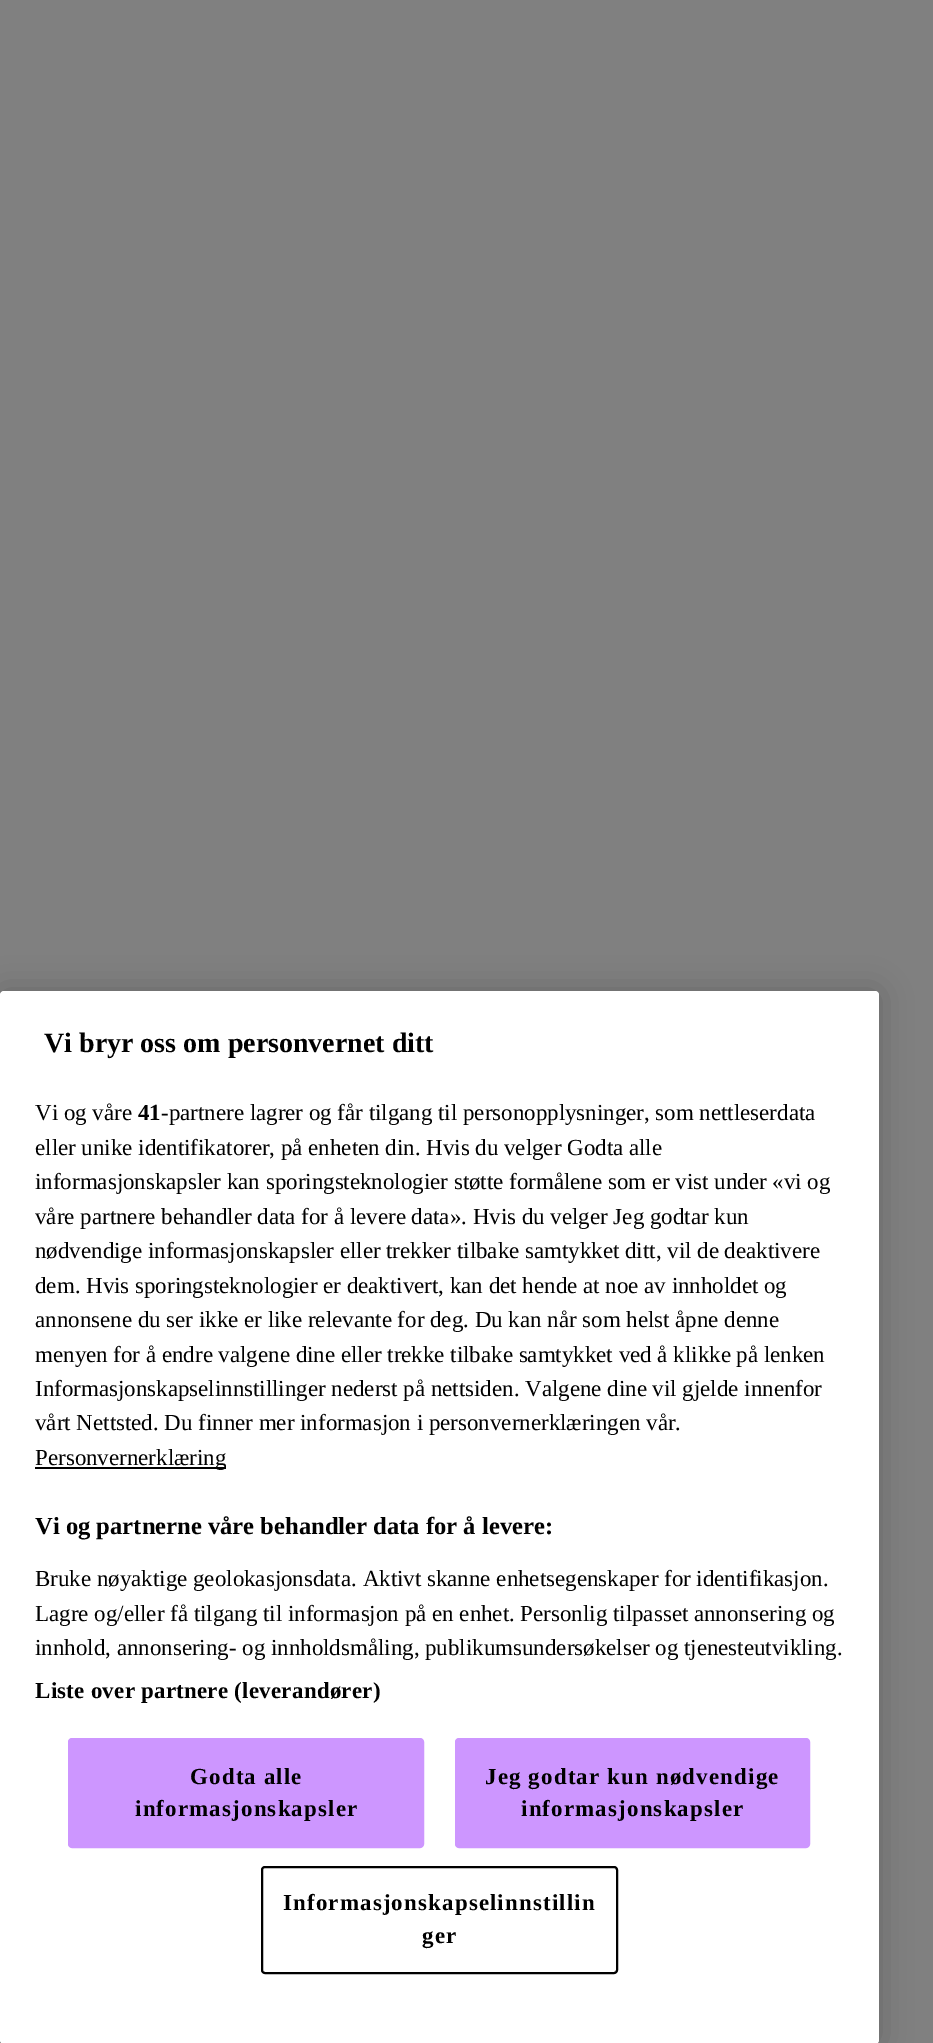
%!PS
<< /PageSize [933 2043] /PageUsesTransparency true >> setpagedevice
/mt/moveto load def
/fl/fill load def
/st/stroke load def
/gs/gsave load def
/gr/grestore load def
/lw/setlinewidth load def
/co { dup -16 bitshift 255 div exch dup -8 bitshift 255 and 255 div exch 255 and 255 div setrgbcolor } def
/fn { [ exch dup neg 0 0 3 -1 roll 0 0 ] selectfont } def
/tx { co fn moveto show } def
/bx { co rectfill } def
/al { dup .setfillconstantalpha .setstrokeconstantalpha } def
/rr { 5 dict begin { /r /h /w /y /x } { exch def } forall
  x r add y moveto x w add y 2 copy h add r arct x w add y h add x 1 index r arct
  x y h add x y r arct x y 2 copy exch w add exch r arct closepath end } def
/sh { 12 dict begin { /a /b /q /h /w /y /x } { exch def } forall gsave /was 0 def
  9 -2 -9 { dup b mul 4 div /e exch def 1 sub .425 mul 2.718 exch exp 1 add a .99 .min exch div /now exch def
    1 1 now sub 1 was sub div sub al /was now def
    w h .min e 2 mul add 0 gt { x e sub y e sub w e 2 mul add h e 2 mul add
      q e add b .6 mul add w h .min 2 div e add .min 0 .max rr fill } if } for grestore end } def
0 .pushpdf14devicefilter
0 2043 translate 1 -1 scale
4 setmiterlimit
0 0 933 2043 16#808080 bx
16#000000 co
0 991 879 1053 4 16 .2 sh
16#FFFFFF co
0 991 879 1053 4 rr fl
35 1467 191 2 16#000000 bx
16#CD96FF co
69 1739 354 108 3 rr gs fl gr
2 lw
st
456 1739 353 108 3 rr gs fl gr
st
16#000000 co
262 1867 355 106 3 rr st
(Vi bryr oss om personvernet ditt) 44 1052 /LiberationSerif-Bold 28 16#000000 tx
(Vi og våre) 35 1120 /LiberationSerif-Regular 22.95 16#000000 tx
(41) 138 1120 /LiberationSerif-Bold 22.95 16#000000 tx
(-partnere lagrer og får tilgang til personopplysninger, som nettleserdata) 161 1120 /LiberationSerif-Regular 22.95 16#000000 tx
(eller unike identifikatorer, på enheten din. Hvis du velger Godta alle) 35 1155 /LiberationSerif-Regular 22.95 16#000000 tx
(informasjonskapsler kan sporingsteknologier støtte formålene som er vist under «vi og) 35 1189 /LiberationSerif-Regular 22.95 16#000000 tx
(våre partnere behandler data for å levere data». Hvis du velger Jeg godtar kun) 35 1224 /LiberationSerif-Regular 22.95 16#000000 tx
(nødvendige informasjonskapsler eller trekker tilbake samtykket ditt, vil de deaktivere) 35 1258 /LiberationSerif-Regular 22.95 16#000000 tx
(dem. Hvis sporingsteknologier er deaktivert, kan det hende at noe av innholdet og) 35 1293 /LiberationSerif-Regular 22.95 16#000000 tx
(annonsene du ser ikke er like relevante for deg. Du kan når som helst åpne denne) 35 1327 /LiberationSerif-Regular 22.95 16#000000 tx
(menyen for å endre valgene dine eller trekke tilbake samtykket ved å klikke på lenken) 35 1362 /LiberationSerif-Regular 22.95 16#000000 tx
(Informasjonskapselinnstillinger nederst på nettsiden. Valgene dine vil gjelde innenfor) 35 1396 /LiberationSerif-Regular 22.95 16#000000 tx
(vårt Nettsted. Du finner mer informasjon i personvernerklæringen vår.) 35 1430 /LiberationSerif-Regular 22.95 16#000000 tx
(Personvernerklæring) 35 1465 /LiberationSerif-Regular 22.95 16#000000 tx
(Vi og partnerne våre behandler data for å levere:) 35 1534 /LiberationSerif-Bold 24.6 16#000000 tx
(Bruke nøyaktige geolokasjonsdata. Aktivt skanne enhetsegenskaper for identifikasjon.) 35 1586 /LiberationSerif-Regular 22.95 16#000000 tx
(Lagre og/eller få tilgang til informasjon på en enhet. Personlig tilpasset annonsering og) 35 1621 /LiberationSerif-Regular 22.95 16#000000 tx
(innhold, annonsering- og innholdsmåling, publikumsundersøkelser og tjenesteutvikling.) 35 1655 /LiberationSerif-Regular 22.95 16#000000 tx
/LiberationSerif-Bold 22.95 fn
35 1698 mt .25 0 (Liste over partnere \(leverandører\)) ashow
190 1784 mt 1.15 0 (Godta alle) ashow
135 1816 mt 1.15 0 (informasjonskapsler) ashow
485 1784 mt 1.15 0 (Jeg godtar kun nødvendige) ashow
521 1816 mt 1.15 0 (informasjonskapsler) ashow
283 1910 mt 1.15 0 (Informasjonskapselinnstillin) ashow
422 1943 mt 1.15 0 (ger) ashow
.poppdf14devicefilter showpage
